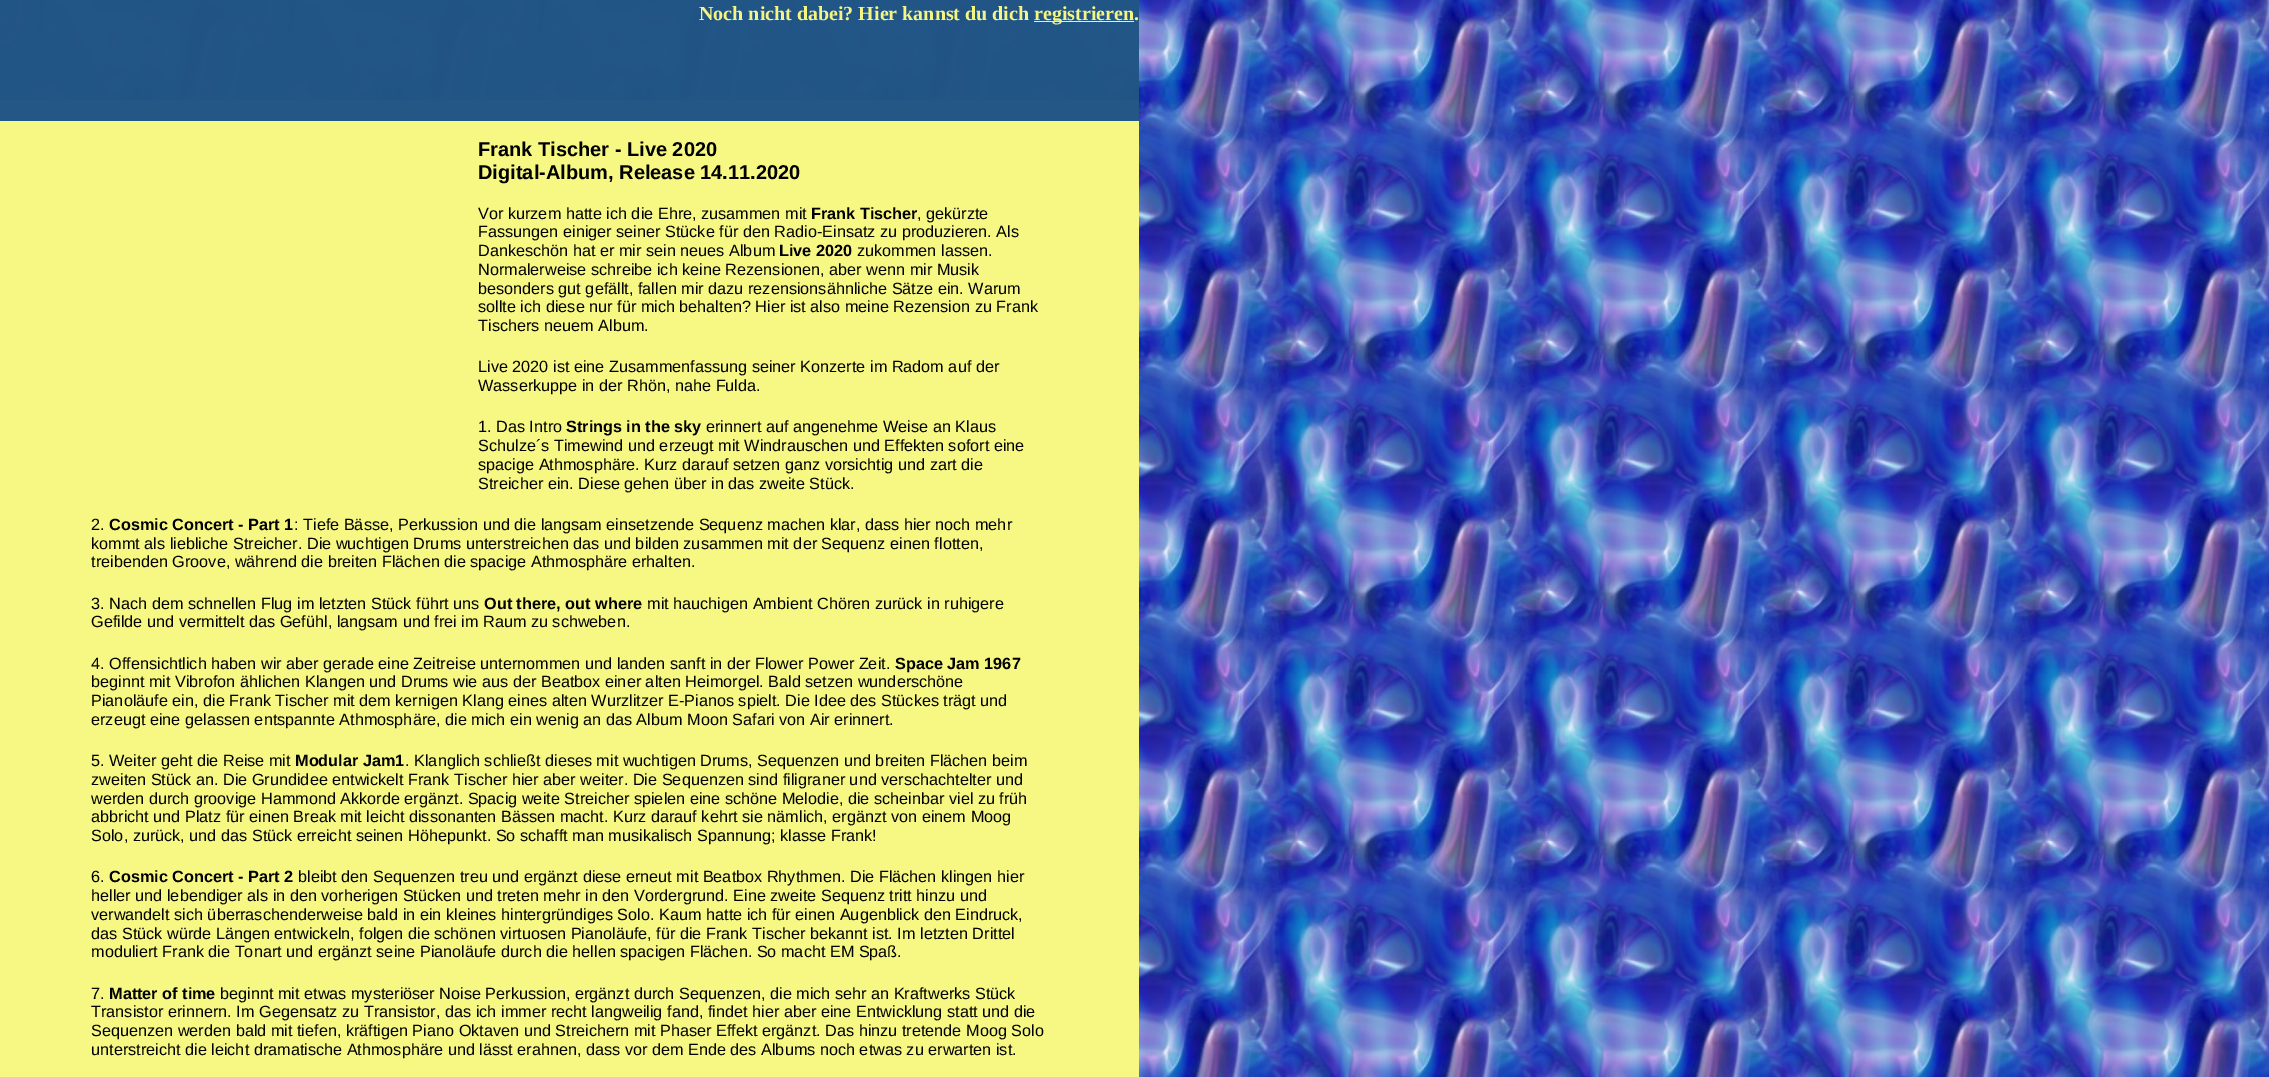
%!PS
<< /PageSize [2269 1077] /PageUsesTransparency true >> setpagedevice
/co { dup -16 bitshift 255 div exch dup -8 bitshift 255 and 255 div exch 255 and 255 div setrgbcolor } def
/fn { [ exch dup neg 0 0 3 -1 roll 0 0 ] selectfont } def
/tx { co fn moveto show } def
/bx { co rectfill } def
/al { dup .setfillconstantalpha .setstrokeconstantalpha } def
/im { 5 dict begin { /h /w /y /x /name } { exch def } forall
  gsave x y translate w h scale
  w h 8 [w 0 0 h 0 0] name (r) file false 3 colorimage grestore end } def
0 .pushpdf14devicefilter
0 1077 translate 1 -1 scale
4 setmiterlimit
0 0 2269 1077 16#FFFFFF bx
(media/1.raw) 0 0 2269 1077 im
0 100 1139 977 16#F7F783 bx
0.99 al
0 0 1139 121 16#215585 bx
1 al
1034 21 100 1 16#F5F583 bx
(Noch nicht dabei? Hier kannst du dich) 699 20 /LiberationSerif-Bold 20 16#F5F583 tx
(registrieren.) 1034 20 /LiberationSerif-Bold 20 16#F5F583 tx
(Frank Tischer - Live 2020) 478 156 /LiberationSans-Bold 20 16#000000 tx
(Digital-Album, Release 14.11.2020) 478 179 /LiberationSans-Bold 20 16#000000 tx
(Vor kurzem hatte ich die Ehre, zusammen mit) 478 219 /LiberationSans-Regular 16.25 16#000000 tx
(Frank Tischer) 811 219 /LiberationSans-Bold 16.25 16#000000 tx
(, gekürzte) 917 219 /LiberationSans-Regular 16.25 16#000000 tx
(Fassungen einiger seiner Stücke für den Radio-Einsatz zu produzieren. Als) 478 237 /LiberationSans-Regular 16.25 16#000000 tx
(Dankeschön hat er mir sein neues Album) 478 256 /LiberationSans-Regular 16.25 16#000000 tx
(Live 2020) 779 256 /LiberationSans-Bold 16.25 16#000000 tx
(zukommen lassen.) 857 256 /LiberationSans-Regular 16.25 16#000000 tx
(Normalerweise schreibe ich keine Rezensionen, aber wenn mir Musik) 478 275 /LiberationSans-Regular 16.25 16#000000 tx
(besonders gut gefällt, fallen mir dazu rezensionsähnliche Sätze ein. Warum) 478 294 /LiberationSans-Regular 16.25 16#000000 tx
(sollte ich diese nur für mich behalten? Hier ist also meine Rezension zu Frank) 478 312 /LiberationSans-Regular 16.25 16#000000 tx
(Tischers neuem Album.) 478 331 /LiberationSans-Regular 16.25 16#000000 tx
(Live 2020 ist eine Zusammenfassung seiner Konzerte im Radom auf der) 478 372 /LiberationSans-Regular 16.25 16#000000 tx
(Wasserkuppe in der Rhön, nahe Fulda.) 478 391 /LiberationSans-Regular 16.25 16#000000 tx
(1. Das Intro) 478 432 /LiberationSans-Regular 16.25 16#000000 tx
(Strings in the sky) 566 432 /LiberationSans-Bold 16.25 16#000000 tx
(erinnert auf angenehme Weise an Klaus) 706 432 /LiberationSans-Regular 16.25 16#000000 tx
(Schulze´s Timewind und erzeugt mit Windrauschen und Effekten sofort eine) 478 451 /LiberationSans-Regular 16.25 16#000000 tx
(spacige Athmosphäre. Kurz darauf setzen ganz vorsichtig und zart die) 478 470 /LiberationSans-Regular 16.25 16#000000 tx
(Streicher ein. Diese gehen über in das zweite Stück.) 478 489 /LiberationSans-Regular 16.25 16#000000 tx
(2.) 91 530 /LiberationSans-Regular 16.25 16#000000 tx
(Cosmic Concert - Part 1) 109 530 /LiberationSans-Bold 16.25 16#000000 tx
(: Tiefe Bässe, Perkussion und die langsam einsetzende Sequenz machen klar, dass hier noch mehr) 294 530 /LiberationSans-Regular 16.25 16#000000 tx
(kommt als liebliche Streicher. Die wuchtigen Drums unterstreichen das und bilden zusammen mit der Sequenz einen flotten,) 91 549 /LiberationSans-Regular 16.25 16#000000 tx
(treibenden Groove, während die breiten Flächen die spacige Athmosphäre erhalten.) 91 567 /LiberationSans-Regular 16.25 16#000000 tx
(3. Nach dem schnellen Flug im letzten Stück führt uns) 91 609 /LiberationSans-Regular 16.25 16#000000 tx
(Out there, out where) 484 609 /LiberationSans-Bold 16.25 16#000000 tx
(mit hauchigen Ambient Chören zurück in ruhigere) 647 609 /LiberationSans-Regular 16.25 16#000000 tx
(Gefilde und vermittelt das Gefühl, langsam und frei im Raum zu schweben.) 91 627 /LiberationSans-Regular 16.25 16#000000 tx
(4. Offensichtlich haben wir aber gerade eine Zeitreise unternommen und landen sanft in der Flower Power Zeit.) 91 669 /LiberationSans-Regular 16.25 16#000000 tx
(Space Jam 1967) 895 669 /LiberationSans-Bold 16.25 16#000000 tx
(beginnt mit Vibrofon ählichen Klangen und Drums wie aus der Beatbox einer alten Heimorgel. Bald setzen wunderschöne) 91 687 /LiberationSans-Regular 16.25 16#000000 tx
(Pianoläufe ein, die Frank Tischer mit dem kernigen Klang eines alten Wurzlitzer E-Pianos spielt. Die Idee des Stückes trägt und) 91 706 /LiberationSans-Regular 16.25 16#000000 tx
(erzeugt eine gelassen entspannte Athmosphäre, die mich ein wenig an das Album Moon Safari von Air erinnert.) 91 725 /LiberationSans-Regular 16.25 16#000000 tx
(5. Weiter geht die Reise mit) 91 766 /LiberationSans-Regular 16.25 16#000000 tx
(Modular Jam1) 295 766 /LiberationSans-Bold 16.25 16#000000 tx
(. Klanglich schließt dieses mit wuchtigen Drums, Sequenzen und breiten Flächen beim) 405 766 /LiberationSans-Regular 16.25 16#000000 tx
(zweiten Stück an. Die Grundidee entwickelt Frank Tischer hier aber weiter. Die Sequenzen sind filigraner und verschachtelter und) 91 785 /LiberationSans-Regular 16.25 16#000000 tx
(werden durch groovige Hammond Akkorde ergänzt. Spacig weite Streicher spielen eine schöne Melodie, die scheinbar viel zu früh) 91 804 /LiberationSans-Regular 16.25 16#000000 tx
(abbricht und Platz für einen Break mit leicht dissonanten Bässen macht. Kurz darauf kehrt sie nämlich, ergänzt von einem Moog) 91 822 /LiberationSans-Regular 16.25 16#000000 tx
(Solo, zurück, und das Stück erreicht seinen Höhepunkt. So schafft man musikalisch Spannung; klasse Frank!) 91 841 /LiberationSans-Regular 16.25 16#000000 tx
(6.) 91 882 /LiberationSans-Regular 16.25 16#000000 tx
(Cosmic Concert - Part 2) 109 882 /LiberationSans-Bold 16.25 16#000000 tx
(bleibt den Sequenzen treu und ergänzt diese erneut mit Beatbox Rhythmen. Die Flächen klingen hier) 298 882 /LiberationSans-Regular 16.25 16#000000 tx
(heller und lebendiger als in den vorherigen Stücken und treten mehr in den Vordergrund. Eine zweite Sequenz tritt hinzu und) 91 901 /LiberationSans-Regular 16.25 16#000000 tx
(verwandelt sich überraschenderweise bald in ein kleines hintergründiges Solo. Kaum hatte ich für einen Augenblick den Eindruck,) 91 920 /LiberationSans-Regular 16.25 16#000000 tx
(das Stück würde Längen entwickeln, folgen die schönen virtuosen Pianoläufe, für die Frank Tischer bekannt ist. Im letzten Drittel) 91 939 /LiberationSans-Regular 16.25 16#000000 tx
(moduliert Frank die Tonart und ergänzt seine Pianoläufe durch die hellen spacigen Flächen. So macht EM Spaß.) 91 957 /LiberationSans-Regular 16.25 16#000000 tx
(7.) 91 999 /LiberationSans-Regular 16.25 16#000000 tx
(Matter of time) 109 999 /LiberationSans-Bold 16.25 16#000000 tx
(beginnt mit etwas mysteriöser Noise Perkussion, ergänzt durch Sequenzen, die mich sehr an Kraftwerks Stück) 220 999 /LiberationSans-Regular 16.25 16#000000 tx
(Transistor erinnern. Im Gegensatz zu Transistor, das ich immer recht langweilig fand, findet hier aber eine Entwicklung statt und die) 91 1017 /LiberationSans-Regular 16.25 16#000000 tx
(Sequenzen werden bald mit tiefen, kräftigen Piano Oktaven und Streichern mit Phaser Effekt ergänzt. Das hinzu tretende Moog Solo) 91 1036 /LiberationSans-Regular 16.25 16#000000 tx
(unterstreicht die leicht dramatische Athmosphäre und lässt erahnen, dass vor dem Ende des Albums noch etwas zu erwarten ist.) 91 1055 /LiberationSans-Regular 16.25 16#000000 tx
.poppdf14devicefilter showpage
